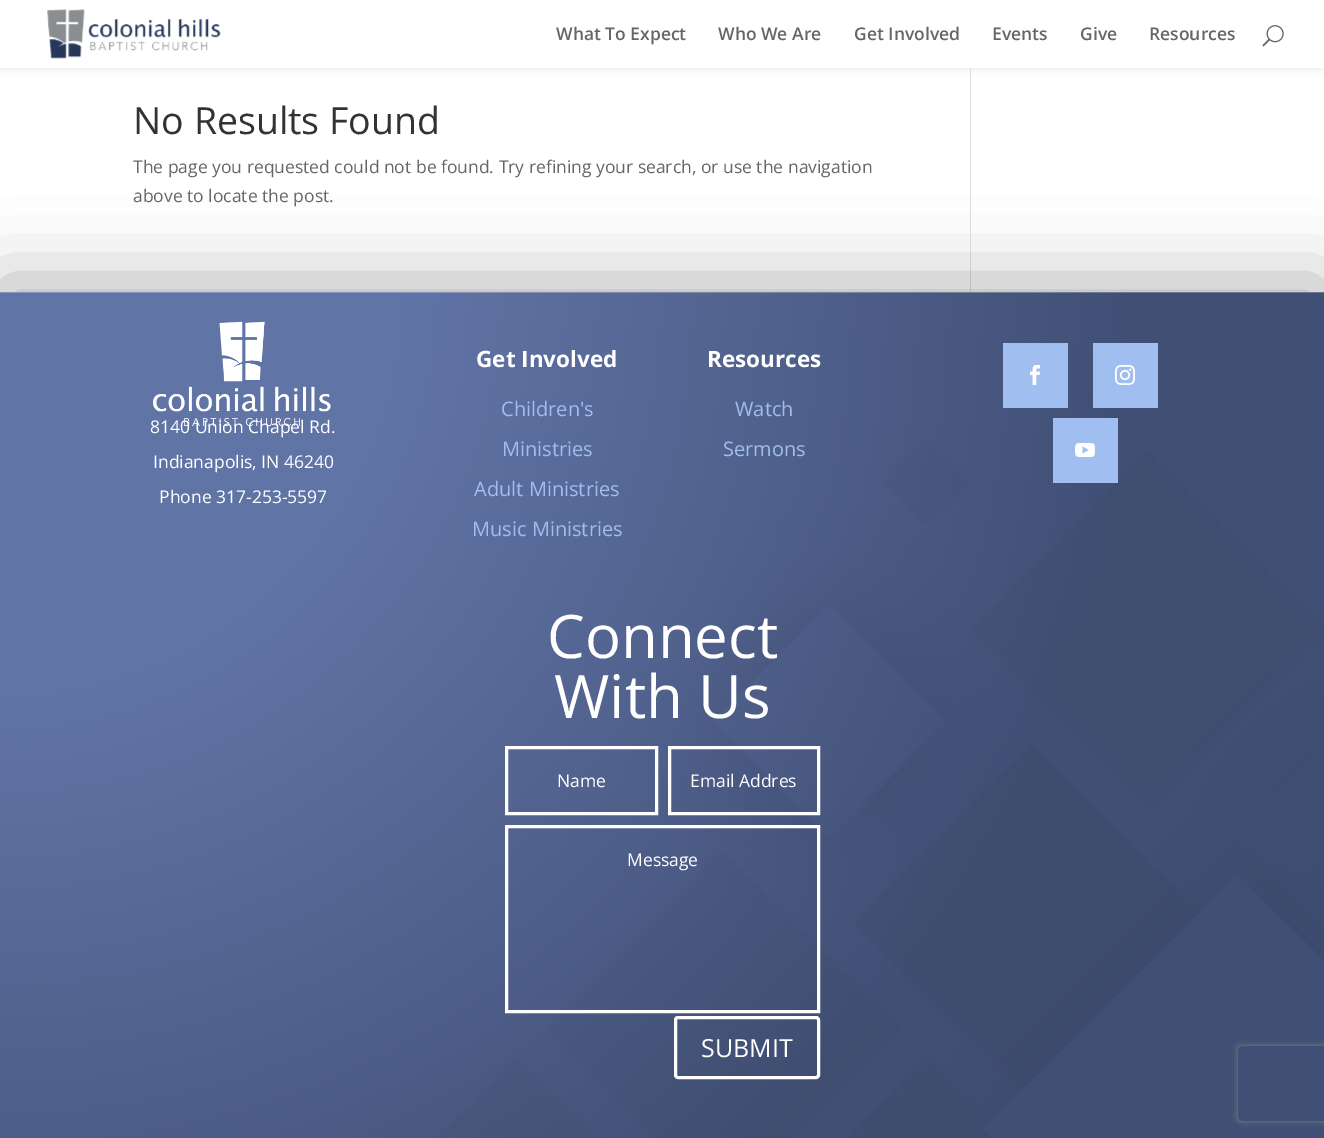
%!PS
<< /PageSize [1324 1138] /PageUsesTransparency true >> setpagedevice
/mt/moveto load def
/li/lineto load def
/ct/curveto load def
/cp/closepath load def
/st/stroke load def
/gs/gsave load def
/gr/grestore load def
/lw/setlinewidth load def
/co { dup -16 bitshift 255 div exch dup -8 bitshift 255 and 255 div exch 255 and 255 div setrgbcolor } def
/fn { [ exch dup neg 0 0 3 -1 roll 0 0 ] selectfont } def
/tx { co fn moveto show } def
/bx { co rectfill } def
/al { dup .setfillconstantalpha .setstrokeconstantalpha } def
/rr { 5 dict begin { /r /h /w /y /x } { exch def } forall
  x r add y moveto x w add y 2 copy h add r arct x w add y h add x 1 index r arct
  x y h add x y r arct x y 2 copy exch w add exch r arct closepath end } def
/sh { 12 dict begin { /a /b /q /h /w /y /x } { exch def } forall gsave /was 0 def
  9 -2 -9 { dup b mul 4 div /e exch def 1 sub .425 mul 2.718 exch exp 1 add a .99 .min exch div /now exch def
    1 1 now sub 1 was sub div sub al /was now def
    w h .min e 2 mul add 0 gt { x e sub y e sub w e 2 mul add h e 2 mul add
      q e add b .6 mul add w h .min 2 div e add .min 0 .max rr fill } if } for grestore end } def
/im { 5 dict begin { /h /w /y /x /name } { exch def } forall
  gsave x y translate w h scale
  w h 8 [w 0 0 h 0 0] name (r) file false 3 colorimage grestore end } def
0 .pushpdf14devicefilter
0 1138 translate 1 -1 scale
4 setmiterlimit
0 0 1324 1138 16#FFFFFF bx
970 68 1 225 16#E2E2E2 bx
16#000000 co
0 0 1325 68 0 4.5 .1 sh
0 0 1324 68 16#FFFFFF bx
(media/1.raw) 47 9 174 50 im
(media/2.raw) 1262 25 22 22 im
16#000000 co
0 280 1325 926 0 37.5 .3 sh
(media/3.raw) 0 292 1324 846 im
(media/4.raw) 153 321 178 106 im
1003 343 65 65 16#A0BEEF bx
(media/5.raw) 1030 365 10 20 im
1093 343 65 65 16#A0BEEF bx
(media/6.raw) 1115 365 20 20 im
1053 418 65 65 16#A0BEEF bx
(media/7.raw) 1075 442 20 16 im
16#FFFFFF co
3 lw
506.5 747.5 150 66 rectstroke
669.5 747.5 149 66 rectstroke
506.5 826.5 312 185 rectstroke
675.5 1017.5 143 60 2.5 rr st
gs
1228 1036 mt 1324 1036 li 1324 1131 li 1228 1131 li cp 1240.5 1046 mt 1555.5 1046 li 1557 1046 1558 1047 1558 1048.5 ct 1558 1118.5 li 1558 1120 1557 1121 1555.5 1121 ct 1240.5 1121 li 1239 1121 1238 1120 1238 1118.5 ct 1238 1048.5 li 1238 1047 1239 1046 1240.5 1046 ct cp eoclip newpath
16#808080 co
1238 1046 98 75 2.5 3 1 sh
gr
(What To Expect) 556 40 /OpenSans-SemiBold 17.5 16#666666 tx
(Who We Are) 718 40 /OpenSans-SemiBold 17.5 16#666666 tx
(Get Involved) 854 40 /OpenSans-SemiBold 17.5 16#666666 tx
(Events) 992 40 /OpenSans-SemiBold 17.5 16#666666 tx
(Give) 1080 40 /OpenSans-SemiBold 17.5 16#666666 tx
(Resources) 1149 40 /OpenSans-SemiBold 17.5 16#666666 tx
(No Results Found) 133 134 /OpenSans-Regular 37.5 16#333333 tx
(The page you requested could not be found. Try refining your search, or use the navigation) 133 173 /OpenSans-Regular 17.5 16#666666 tx
(above to locate the post.) 133 202 /OpenSans-Regular 17.5 16#666666 tx
(8140 Union Chapel Rd.) 150 433 /OpenSans-Regular 17.5 16#FFFFFF tx
(Indianapolis, IN 46240) 153 468 /OpenSans-Regular 17.5 16#FFFFFF tx
(Phone 317-253-5597) 159 503 /OpenSans-Regular 17.5 16#FFFFFF tx
(Get Involved) 476 367 /OpenSans-Bold 22.5 16#FFFFFF tx
(Children's) 501 416 /OpenSans-Regular 20 16#A0BEEF tx
(Ministries) 502 456 /OpenSans-Regular 20 16#A0BEEF tx
(Adult Ministries) 474 496 /OpenSans-Regular 20 16#A0BEEF tx
(Music Ministries) 472 536 /OpenSans-Regular 20 16#A0BEEF tx
(Resources) 707 367 /OpenSans-Bold 22.5 16#FFFFFF tx
(Watch) 735 416 /OpenSans-Regular 20 16#A0BEEF tx
(Sermons) 723 456 /OpenSans-Regular 20 16#A0BEEF tx
(Connect) 547 658 /OpenSans-Regular 60 16#FFFFFF tx
(With Us) 554 718 /OpenSans-Regular 60 16#FFFFFF tx
(Name) 557 787 /OpenSans-Regular 17.5 16#FFFFFF tx
(Email Addres) 690 787 /OpenSans-Regular 17.5 16#FFFFFF tx
(Message) 627 866 /OpenSans-Regular 17.5 16#FFFFFF tx
(SUBMIT) 701 1057 /OpenSans-Regular 25 16#FFFFFF tx
.poppdf14devicefilter showpage
